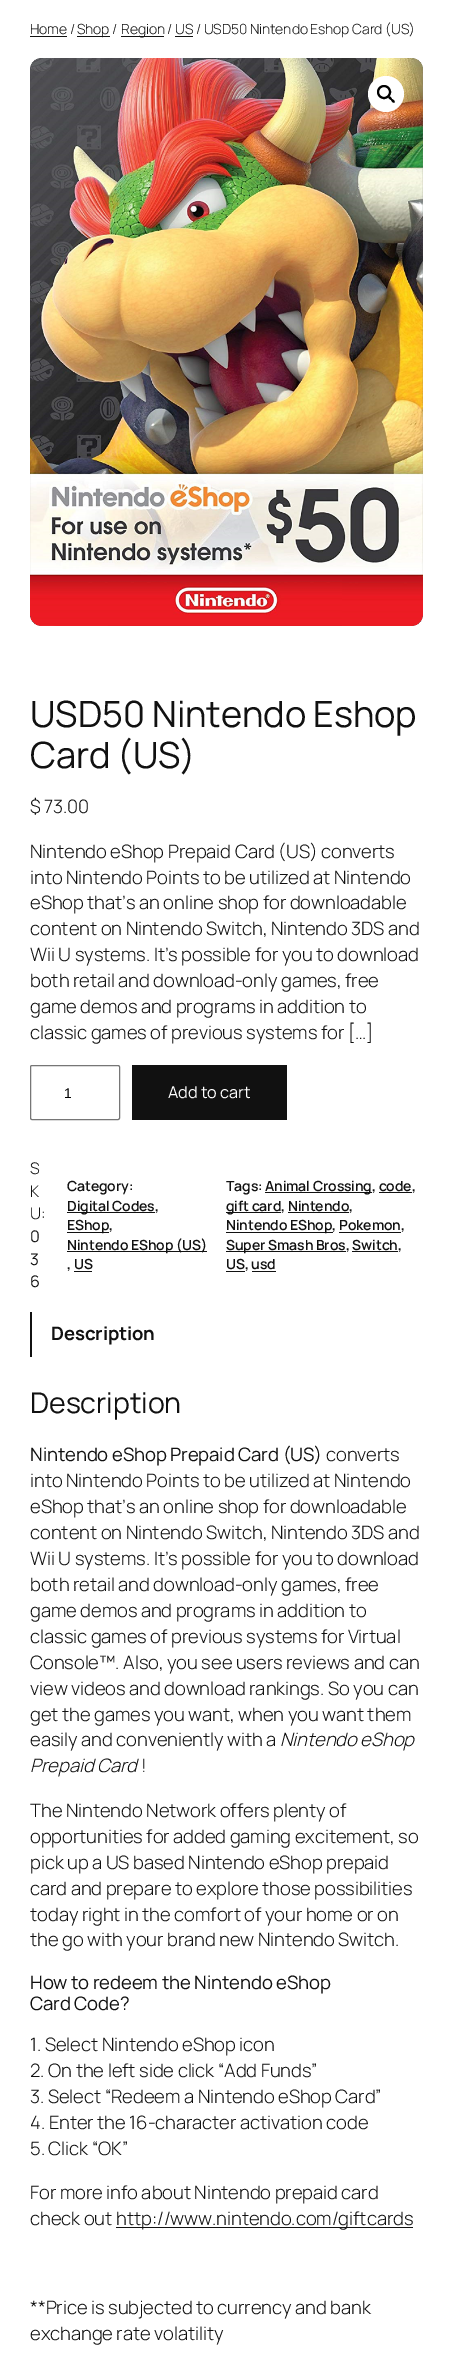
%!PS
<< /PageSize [453 2376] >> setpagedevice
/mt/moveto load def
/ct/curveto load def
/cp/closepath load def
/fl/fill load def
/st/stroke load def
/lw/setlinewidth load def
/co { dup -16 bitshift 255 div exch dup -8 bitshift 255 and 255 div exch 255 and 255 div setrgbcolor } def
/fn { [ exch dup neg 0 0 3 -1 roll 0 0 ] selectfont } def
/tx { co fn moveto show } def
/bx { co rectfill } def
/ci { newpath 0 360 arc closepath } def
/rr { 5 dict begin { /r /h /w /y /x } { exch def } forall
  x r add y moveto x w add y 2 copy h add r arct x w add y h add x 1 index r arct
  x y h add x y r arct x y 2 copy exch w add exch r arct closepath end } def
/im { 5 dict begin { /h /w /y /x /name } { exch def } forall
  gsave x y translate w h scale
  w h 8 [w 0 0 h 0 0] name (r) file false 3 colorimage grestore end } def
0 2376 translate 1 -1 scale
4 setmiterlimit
0 0 453 2376 16#FFFFFF bx
30 36 37 1 16#111111 bx
77 36 33 1 16#111111 bx
121 36 43 1 16#111111 bx
175 36 18 1 16#111111 bx
(media/1.raw) 30 58 393 568 im
16#FFFFFF co
386 94 18 ci fl
16#000000 co
2 lw
384 92 6 ci st
388.5 96.5 mt 390 95.5 391.5 98 392 99 ct 393 99.5 395.5 101 394.5 102.5 ct 393 103.5 391.5 101 391 100 ct 390 99.5 387.5 98 388.5 96.5 ct cp fl
16#767676 co
1 lw
30.5 1065.5 89 54 1.5 rr st
132 1065 155 55 16#111111 bx
67 1212 88 1 16#111111 bx
67 1232 42 1 16#111111 bx
67 1251 140 1 16#111111 bx
74 1271 18 1 16#111111 bx
265 1192 107 1 16#111111 bx
379 1192 33 1 16#111111 bx
226 1212 55 1 16#111111 bx
288 1212 61 1 16#111111 bx
226 1232 107 1 16#111111 bx
339 1232 62 1 16#111111 bx
226 1251 120 1 16#111111 bx
352 1251 46 1 16#111111 bx
226 1271 19 1 16#111111 bx
252 1271 24 1 16#111111 bx
30 1312 2 45 16#111111 bx
116 2227 297 1 16#111111 bx
/Manrope-Light 14 fn
30 34 mt -.1 0 (Home /) ashow
77 34 mt -.1 0 (Shop /) ashow
121 34 mt -.1 0 (Region / US / USD50 Nintendo Eshop Card \(US\)) ashow
/Manrope-Regular 36.25 fn
30 727 mt -.1 0 (USD50 Nintendo Eshop) ashow
30 768 mt -.1 0 (Card \(US\)) ashow
/Manrope-Light 18.5 fn
30 813 mt -.1 0 ($ 73.00) ashow
30 858 mt -.1 0 (Nintendo eShop Prepaid Card \(US\) converts) ashow
30 884 mt -.1 0 (into Nintendo Points to be utilized at Nintendo) ashow
30 909 mt -.1 0 (eShop that’s an online shop for downloadable) ashow
30 935 mt -.1 0 (content on Nintendo Switch, Nintendo 3DS and) ashow
30 961 mt -.1 0 (Wii U systems. It’s possible for you to download) ashow
30 987 mt -.1 0 (both retail and download-only games, free) ashow
30 1013 mt -.1 0 (game demos and programs in addition to) ashow
30 1039 mt -.1 0 (classic games of previous systems for […]) ashow
(1) 64 1098 /LiberationSans-Regular 14 16#000000 tx
(Add to cart) 168 1098 /Manrope-Regular 16.25 16#FFFFFF tx
/Manrope-Light 16 fn
16#111111 co
30 1174 mt -.1 0 (S) ashow
30 1197 mt -.1 0 (K) ashow
30 1219 mt -.1 0 (U:) ashow
/Manrope-Regular 16 fn
30 1242 mt -.1 0 (0) ashow
30 1265 mt -.1 0 (3) ashow
30 1287 mt -.1 0 (6) ashow
/Manrope-SemiBold 14 fn
67 1191 mt -.1 0 (Category:) ashow
67 1211 mt -.1 0 (Digital Codes,) ashow
67 1230 mt -.1 0 (EShop,) ashow
67 1250 mt -.1 0 (Nintendo EShop \(US\)) ashow
67 1269 mt -.1 0 (, US) ashow
226 1191 mt -.1 0 (Tags:) ashow
265 1191 mt -.1 0 (Animal Crossing, code,) ashow
226 1211 mt -.1 0 (gift card, Nintendo,) ashow
226 1230 mt -.1 0 (Nintendo EShop, Pokemon,) ashow
226 1250 mt -.1 0 (Super Smash Bros, Switch,) ashow
226 1269 mt -.1 0 (US, usd) ashow
/Manrope-Bold 18.5 fn
51 1340 mt -.1 0 (Description) ashow
/Manrope-Regular 28.5 fn
30 1413 mt -.1 0 (Description) ashow
/Manrope-Regular 18.5 fn
30 1461 mt -.1 0 (Nintendo eShop Prepaid Card \(US\)) ashow
/Manrope-Light 18.5 fn
326 1461 mt -.1 0 (converts) ashow
30 1487 mt -.1 0 (into Nintendo Points to be utilized at Nintendo) ashow
30 1513 mt -.1 0 (eShop that’s an online shop for downloadable) ashow
30 1539 mt -.1 0 (content on Nintendo Switch, Nintendo 3DS and) ashow
30 1565 mt -.1 0 (Wii U systems. It’s possible for you to download) ashow
30 1591 mt -.1 0 (both retail and download-only games, free) ashow
30 1617 mt -.1 0 (game demos and programs in addition to) ashow
30 1643 mt -.1 0 (classic games of previous systems for Virtual) ashow
30 1669 mt -.1 0 (Console™. Also, you see users reviews and can) ashow
30 1695 mt -.1 0 (view videos and download rankings. So you can) ashow
30 1721 mt -.1 0 (get the games you want, when you want them) ashow
30 1746 mt -.1 0 (easily and conveniently with a) ashow
/Manrope-LightItalic 18.5 fn
280 1746 mt -.1 0 (Nintendo eShop) ashow
30 1772 mt -.1 0 (Prepaid Card) ashow
/Manrope-Light 18.5 fn
141 1772 mt -.1 0 (!) ashow
30 1817 mt -.1 0 (The Nintendo Network offers plenty of) ashow
30 1843 mt -.1 0 (opportunities for added gaming excitement, so) ashow
30 1869 mt -.1 0 (pick up a US based Nintendo eShop prepaid) ashow
30 1895 mt -.1 0 (card and prepare to explore those possibilities) ashow
30 1921 mt -.1 0 (today right in the comfort of your home or on) ashow
30 1946 mt -.1 0 (the go with your brand new Nintendo Switch.) ashow
/Manrope-Regular 18.5 fn
30 1989 mt -.1 0 (How to redeem the Nintendo eShop) ashow
30 2010 mt -.1 0 (Card Code?) ashow
/Manrope-Light 18.5 fn
30 2051 mt -.1 0 (1. Select Nintendo eShop icon) ashow
30 2077 mt -.1 0 (2. On the left side click “Add Funds”) ashow
30 2103 mt -.1 0 (3. Select “Redeem a Nintendo eShop Card”) ashow
30 2129 mt -.1 0 (4. Enter the 16-character activation code) ashow
30 2155 mt -.1 0 (5. Click “OK”) ashow
30 2199 mt -.1 0 (For more info about Nintendo prepaid card) ashow
30 2225 mt -.1 0 (check out) ashow
116 2225 mt -.1 0 (http://www.nintendo.com/giftcards) ashow
30 2314 mt -.1 0 (**Price is subjected to currency and bank) ashow
30 2340 mt -.1 0 (exchange rate volatility) ashow
showpage
